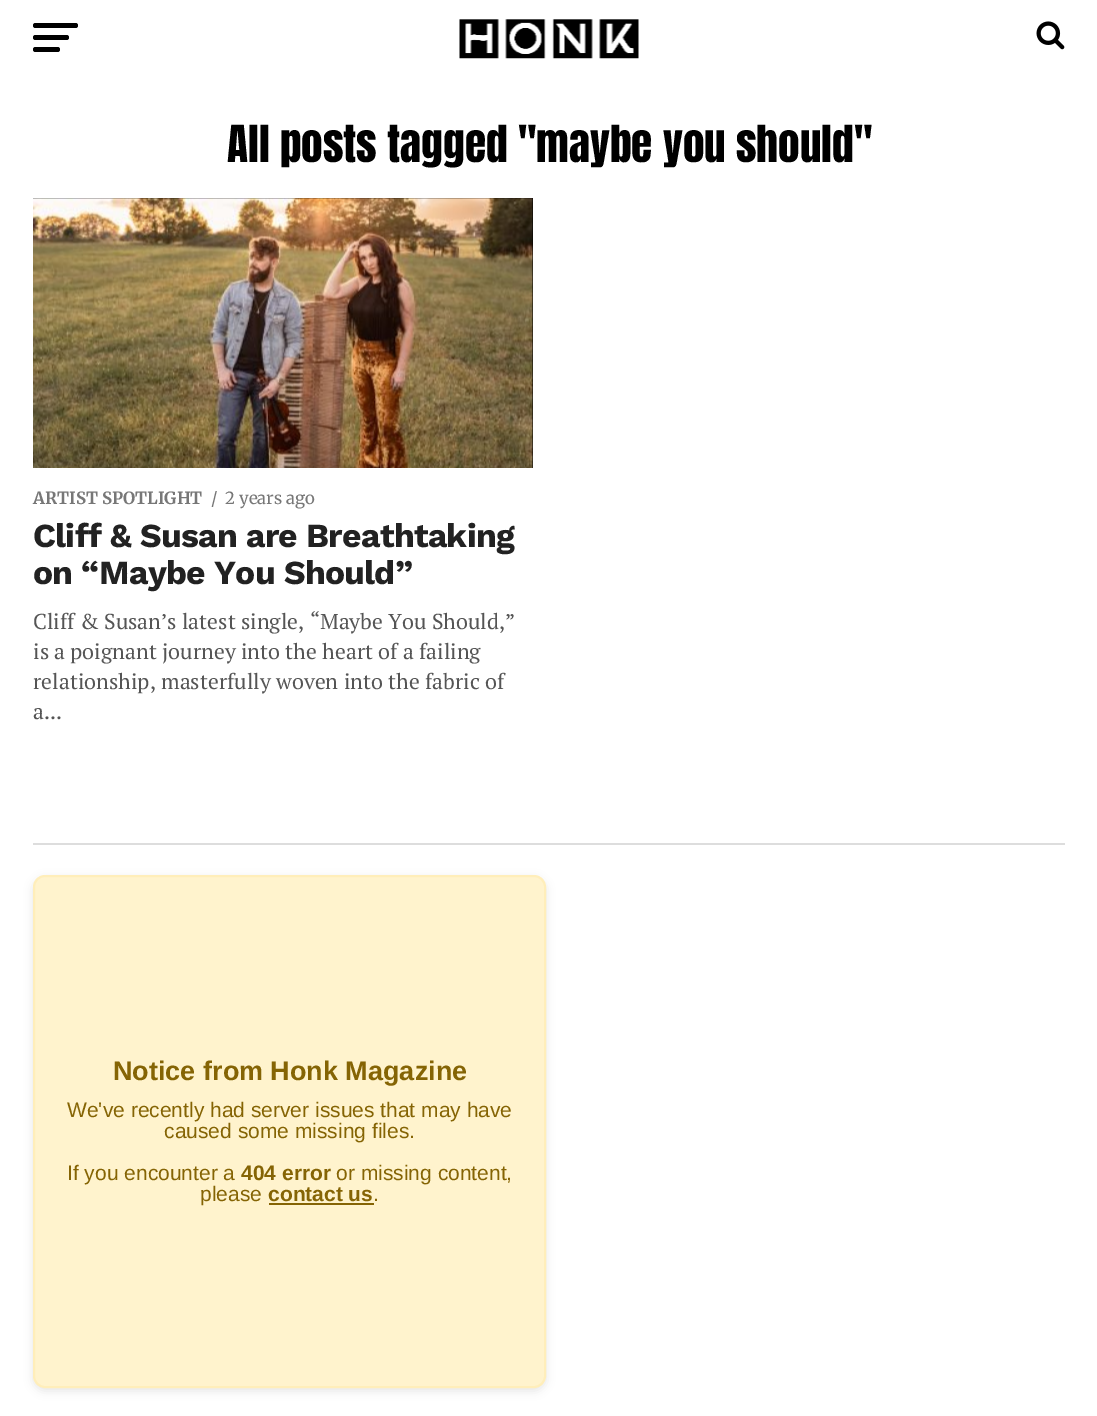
%!PS
<< /PageSize [1097 1416] /PageUsesTransparency true >> setpagedevice
/mt/moveto load def
/fl/fill load def
/st/stroke load def
/gs/gsave load def
/gr/grestore load def
/lw/setlinewidth load def
/co { dup -16 bitshift 255 div exch dup -8 bitshift 255 and 255 div exch 255 and 255 div setrgbcolor } def
/fn { [ exch dup neg 0 0 3 -1 roll 0 0 ] selectfont } def
/tx { co fn moveto show } def
/bx { co rectfill } def
/al { dup .setfillconstantalpha .setstrokeconstantalpha } def
/rr { 5 dict begin { /r /h /w /y /x } { exch def } forall
  x r add y moveto x w add y 2 copy h add r arct x w add y h add x 1 index r arct
  x y h add x y r arct x y 2 copy exch w add exch r arct closepath end } def
/sh { 12 dict begin { /a /b /q /h /w /y /x } { exch def } forall gsave /was 0 def
  9 -2 -9 { dup b mul 4 div /e exch def 1 sub .425 mul 2.718 exch exp 1 add a .99 .min exch div /now exch def
    1 1 now sub 1 was sub div sub al /was now def
    w h .min e 2 mul add 0 gt { x e sub y e sub w e 2 mul add h e 2 mul add
      q e add b .6 mul add w h .min 2 div e add .min 0 .max rr fill } if } for grestore end } def
/im { 5 dict begin { /h /w /y /x /name } { exch def } forall
  gsave x y translate w h scale
  w h 8 [w 0 0 h 0 0] name (r) file false 3 colorimage grestore end } def
0 .pushpdf14devicefilter
0 1416 translate 1 -1 scale
4 setmiterlimit
0 0 1097 1416 16#FFFFFF bx
16#000000 co
33 23 45 5 2.5 rr fl
33 35 36 5 2.5 rr fl
33 47 27 5 2.5 rr fl
(media/1.raw) 459 19 180 40 im
(media/2.raw) 1036 21 29 29 im
33 198 500 270 16#000000 bx
(media/3.raw) 33 198 500 270 im
33 843 1032 2 16#DDDDDD bx
16#000000 co
33 878 513 513 12 4.5 .1 sh
16#FFF3CD co
34 876 511 511 11 rr gs fl gr
16#FFEEBA co
2 lw
st
269 1203 105 2 16#856404 bx
(All posts tagged "maybe you should") 227 162 /Anton-Regular 43.25 16#000000 tx
(ARTIST SPOTLIGHT) 33 504 /Merriweather-Bold 16.75 16#777777 tx
(/) 211 504 /Merriweather-Regular 16.75 16#777777 tx
(2 years ago) 225 504 /Merriweather-Regular 16.75 16#777777 tx
/WorkSans-Bold 33.6 fn
16#222222 co
33 547 mt -.7 0 (Cliff & Susan are Breathtaking) ashow
33 584 mt -.7 0 (on “Maybe You Should”) ashow
(Cliff & Susan’s latest single, “Maybe You Should,”) 33 629 /PTSerif-Regular 21.6 16#555555 tx
(is a poignant journey into the heart of a failing) 33 659 /PTSerif-Regular 21.6 16#555555 tx
(relationship, masterfully woven into the fabric of) 33 689 /PTSerif-Regular 21.6 16#555555 tx
(a...) 33 719 /PTSerif-Regular 21.6 16#555555 tx
(Notice from Honk Magazine) 113 1080 /LiberationSans-Bold 27 16#856404 tx
(We've recently had server issues that may have) 67 1117 /LiberationSans-Regular 21 16#856404 tx
(caused some missing files.) 164 1138 /LiberationSans-Regular 21 16#856404 tx
(If you encounter a) 67 1180 /LiberationSans-Regular 21 16#856404 tx
(404 error) 241 1180 /LiberationSans-Bold 21 16#856404 tx
(or missing content,) 336 1180 /LiberationSans-Regular 21 16#856404 tx
(please) 200 1201 /LiberationSans-Regular 21 16#856404 tx
(contact us) 268 1201 /LiberationSans-Bold 21 16#856404 tx
(.) 373 1201 /LiberationSans-Regular 21 16#856404 tx
.poppdf14devicefilter showpage
